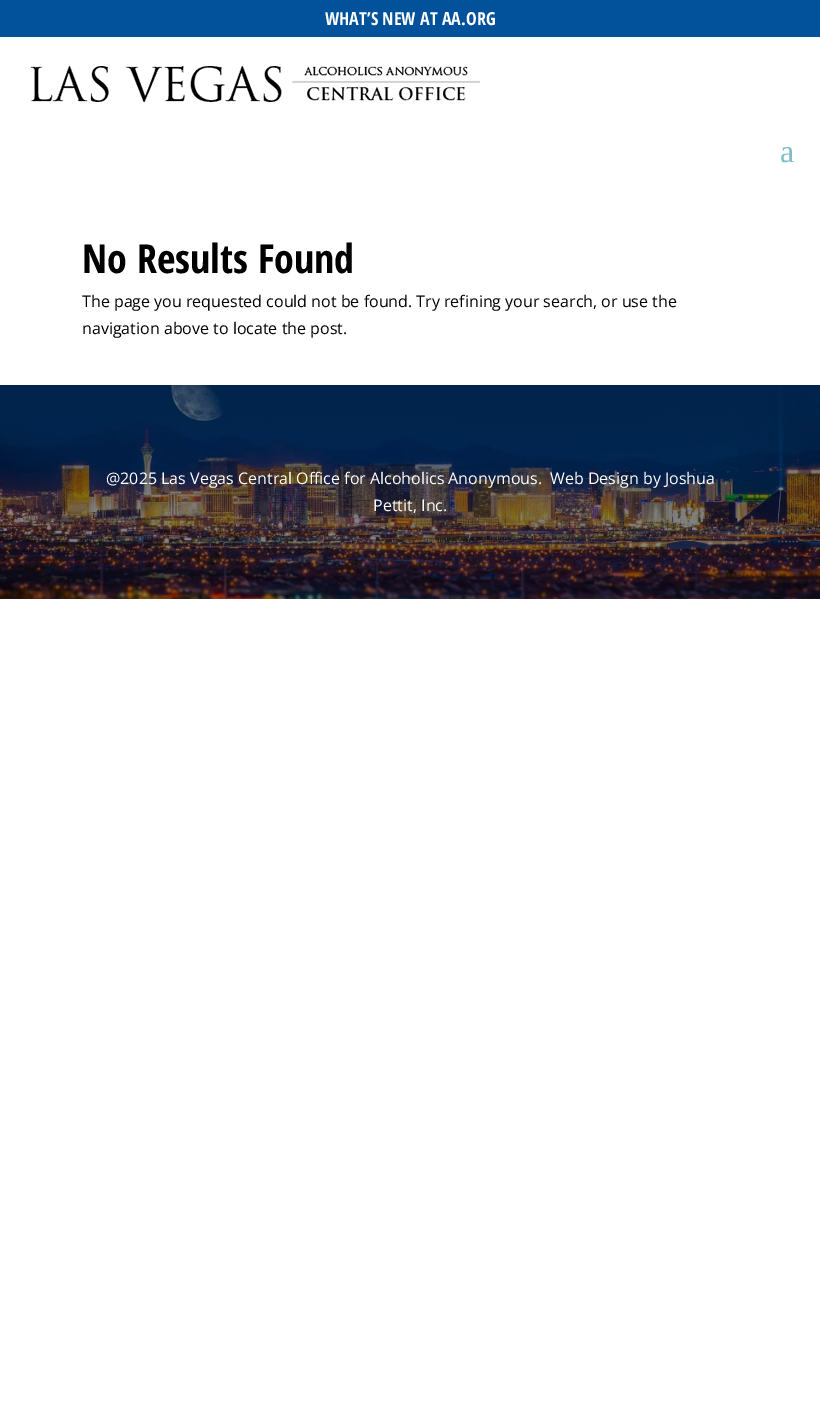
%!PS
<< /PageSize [820 1420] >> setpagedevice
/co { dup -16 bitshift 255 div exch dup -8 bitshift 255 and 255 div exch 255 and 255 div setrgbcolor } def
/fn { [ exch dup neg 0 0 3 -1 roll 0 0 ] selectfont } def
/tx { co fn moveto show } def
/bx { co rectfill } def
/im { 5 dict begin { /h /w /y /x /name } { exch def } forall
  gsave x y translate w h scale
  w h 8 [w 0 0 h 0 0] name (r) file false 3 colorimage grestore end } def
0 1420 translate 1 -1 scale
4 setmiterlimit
0 0 820 1420 16#FFFFFF bx
0 0 820 37 16#01529B bx
(media/1.raw) 30 66 450 36 im
(media/2.raw) 0 385 820 214 im
(WHAT’S NEW AT AA.ORG) 325 25 /OpenSansCondensed-Bold 18 16#FFFFFF tx
(a) 780 162 /LiberationSerif-Regular 32 16#7EBEC5 tx
(No Results Found) 82 273 /OpenSansCondensed-Bold 40 16#000000 tx
(The page you requested could not be found. Try refining your search, or use the) 82 307 /OpenSans-Regular 16 16#000000 tx
(navigation above to locate the post.) 82 334 /OpenSans-Regular 16 16#000000 tx
(@2025 Las Vegas Central Office for Alcoholics Anonymous.  Web Design by Joshua) 106 484 /OpenSans-Regular 16 16#FFFFFF tx
(Pettit, Inc.) 373 511 /OpenSans-Regular 16 16#FFFFFF tx
showpage
